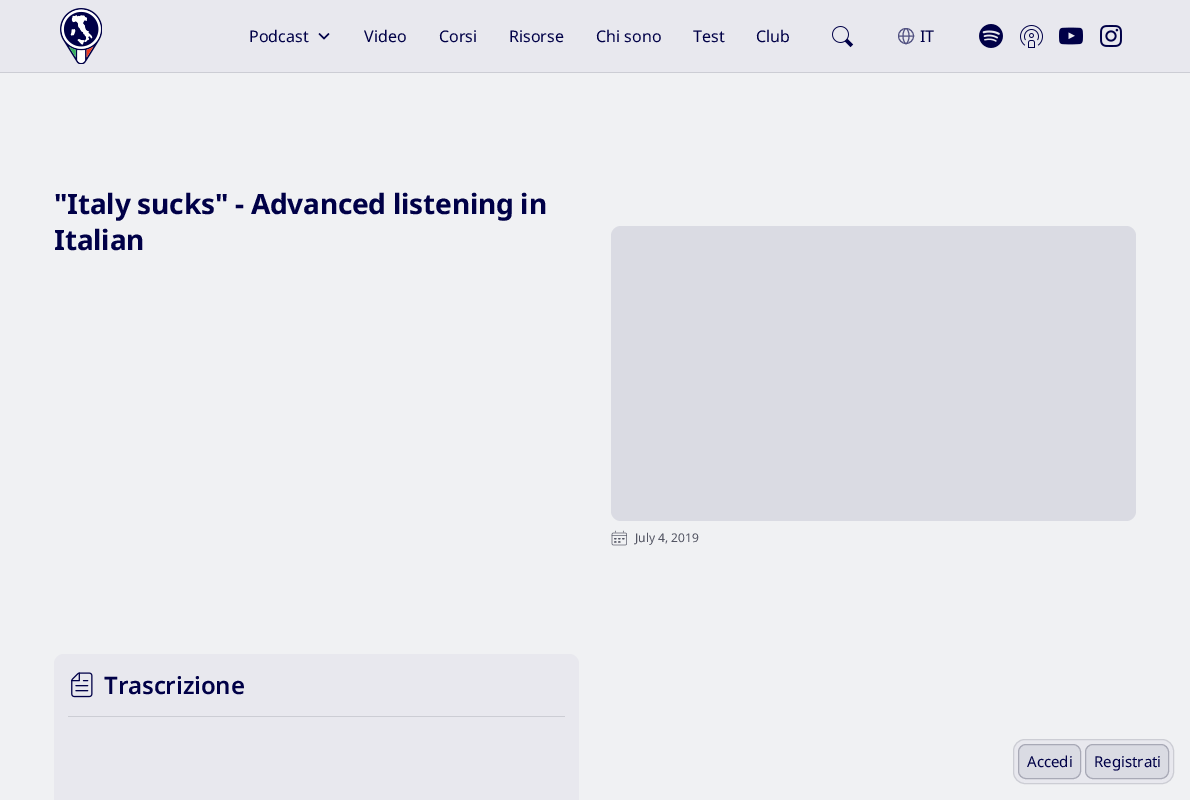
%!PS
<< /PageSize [1190 800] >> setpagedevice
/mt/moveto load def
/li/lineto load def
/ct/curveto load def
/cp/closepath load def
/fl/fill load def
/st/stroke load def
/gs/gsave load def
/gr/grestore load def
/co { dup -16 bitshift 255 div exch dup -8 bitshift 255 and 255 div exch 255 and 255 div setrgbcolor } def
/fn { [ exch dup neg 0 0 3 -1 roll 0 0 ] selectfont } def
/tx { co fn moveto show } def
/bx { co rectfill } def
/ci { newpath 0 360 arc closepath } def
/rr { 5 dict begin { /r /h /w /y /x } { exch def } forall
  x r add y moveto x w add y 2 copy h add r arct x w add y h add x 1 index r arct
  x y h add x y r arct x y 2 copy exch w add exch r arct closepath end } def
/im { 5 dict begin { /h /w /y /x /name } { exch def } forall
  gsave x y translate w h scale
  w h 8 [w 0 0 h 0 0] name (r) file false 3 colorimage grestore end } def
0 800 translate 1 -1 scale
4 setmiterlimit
0 0 1190 800 16#F0F1F3 bx
0 0 1190 72 16#E8E8EE bx
0 72 1190 1 16#CCCDD4 bx
(media/1.raw) 60 8 42 56 im
(media/2.raw) 318 33 12 7 im
(media/3.raw) 832 26 22 22 im
16#515181 co
906 28.5 mt 907.5 28.5 909 32 909 36 ct 909 40 907.5 43.5 906 43.5 ct 904.5 43.5 903 40 903 36 ct 903 32 904.5 28.5 906 28.5 ct cp st
1 setlinecap
1 setlinejoin
898.5 36 mt 913.5 36 li st
0 setlinecap
0 setlinejoin
906 36 7.5 ci st
(media/4.raw) 979 24 24 24 im
(media/5.raw) 1020 25 23 23 im
(media/6.raw) 1059 27 24 18 im
(media/7.raw) 1100 25 22 22 im
16#DADBE3 co
611 226 525 295 10 rr fl
(media/8.raw) 611 530 16 16 im
16#E8E8EE co
54 654 525 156 10 rr fl
(media/9.raw) 71 672 22 26 im
68 716 497 1 16#CCCDD4 bx
16#E8E8EE co
1013.5 739.5 160 44 11.5 rr gs fl gr
16#CCCDD4 co
st
16#DADBE3 co
1018.5 744.5 62 34 7.5 rr gs fl gr
16#A8A9B6 co
st
16#DADBE3 co
1085.5 744.5 83 34 7.5 rr gs fl gr
16#A8A9B6 co
st
(Podcast) 249 42 /NotoSans-Regular 16 16#000047 tx
(Video) 364 42 /NotoSans-Regular 16 16#000047 tx
(Corsi) 439 42 /NotoSans-Regular 16 16#000047 tx
(Risorse) 509 42 /NotoSans-Regular 16 16#000047 tx
(Chi sono) 596 42 /NotoSans-Regular 16 16#000047 tx
(Test) 693 42 /NotoSans-Regular 16 16#000047 tx
(Club) 756 42 /NotoSans-Regular 16 16#000047 tx
(IT) 920 42 /NotoSans-Regular 16 16#000047 tx
/NotoSans-Bold 28 fn
54 214 mt -.2 0 ("Italy sucks" - Advanced listening in) ashow
54 250 mt -.2 0 (Italian) ashow
(July 4, 2019) 635 542 /NotoSans-Regular 12 16#535563 tx
/NotoSans-SemiBold 24 fn
16#000047 co
104 694 mt -.1 0 (Trascrizione) ashow
(Accedi) 1027 767 /NotoSans-Regular 15 16#000047 tx
(Registrati) 1094 767 /NotoSans-Regular 15 16#000047 tx
showpage
